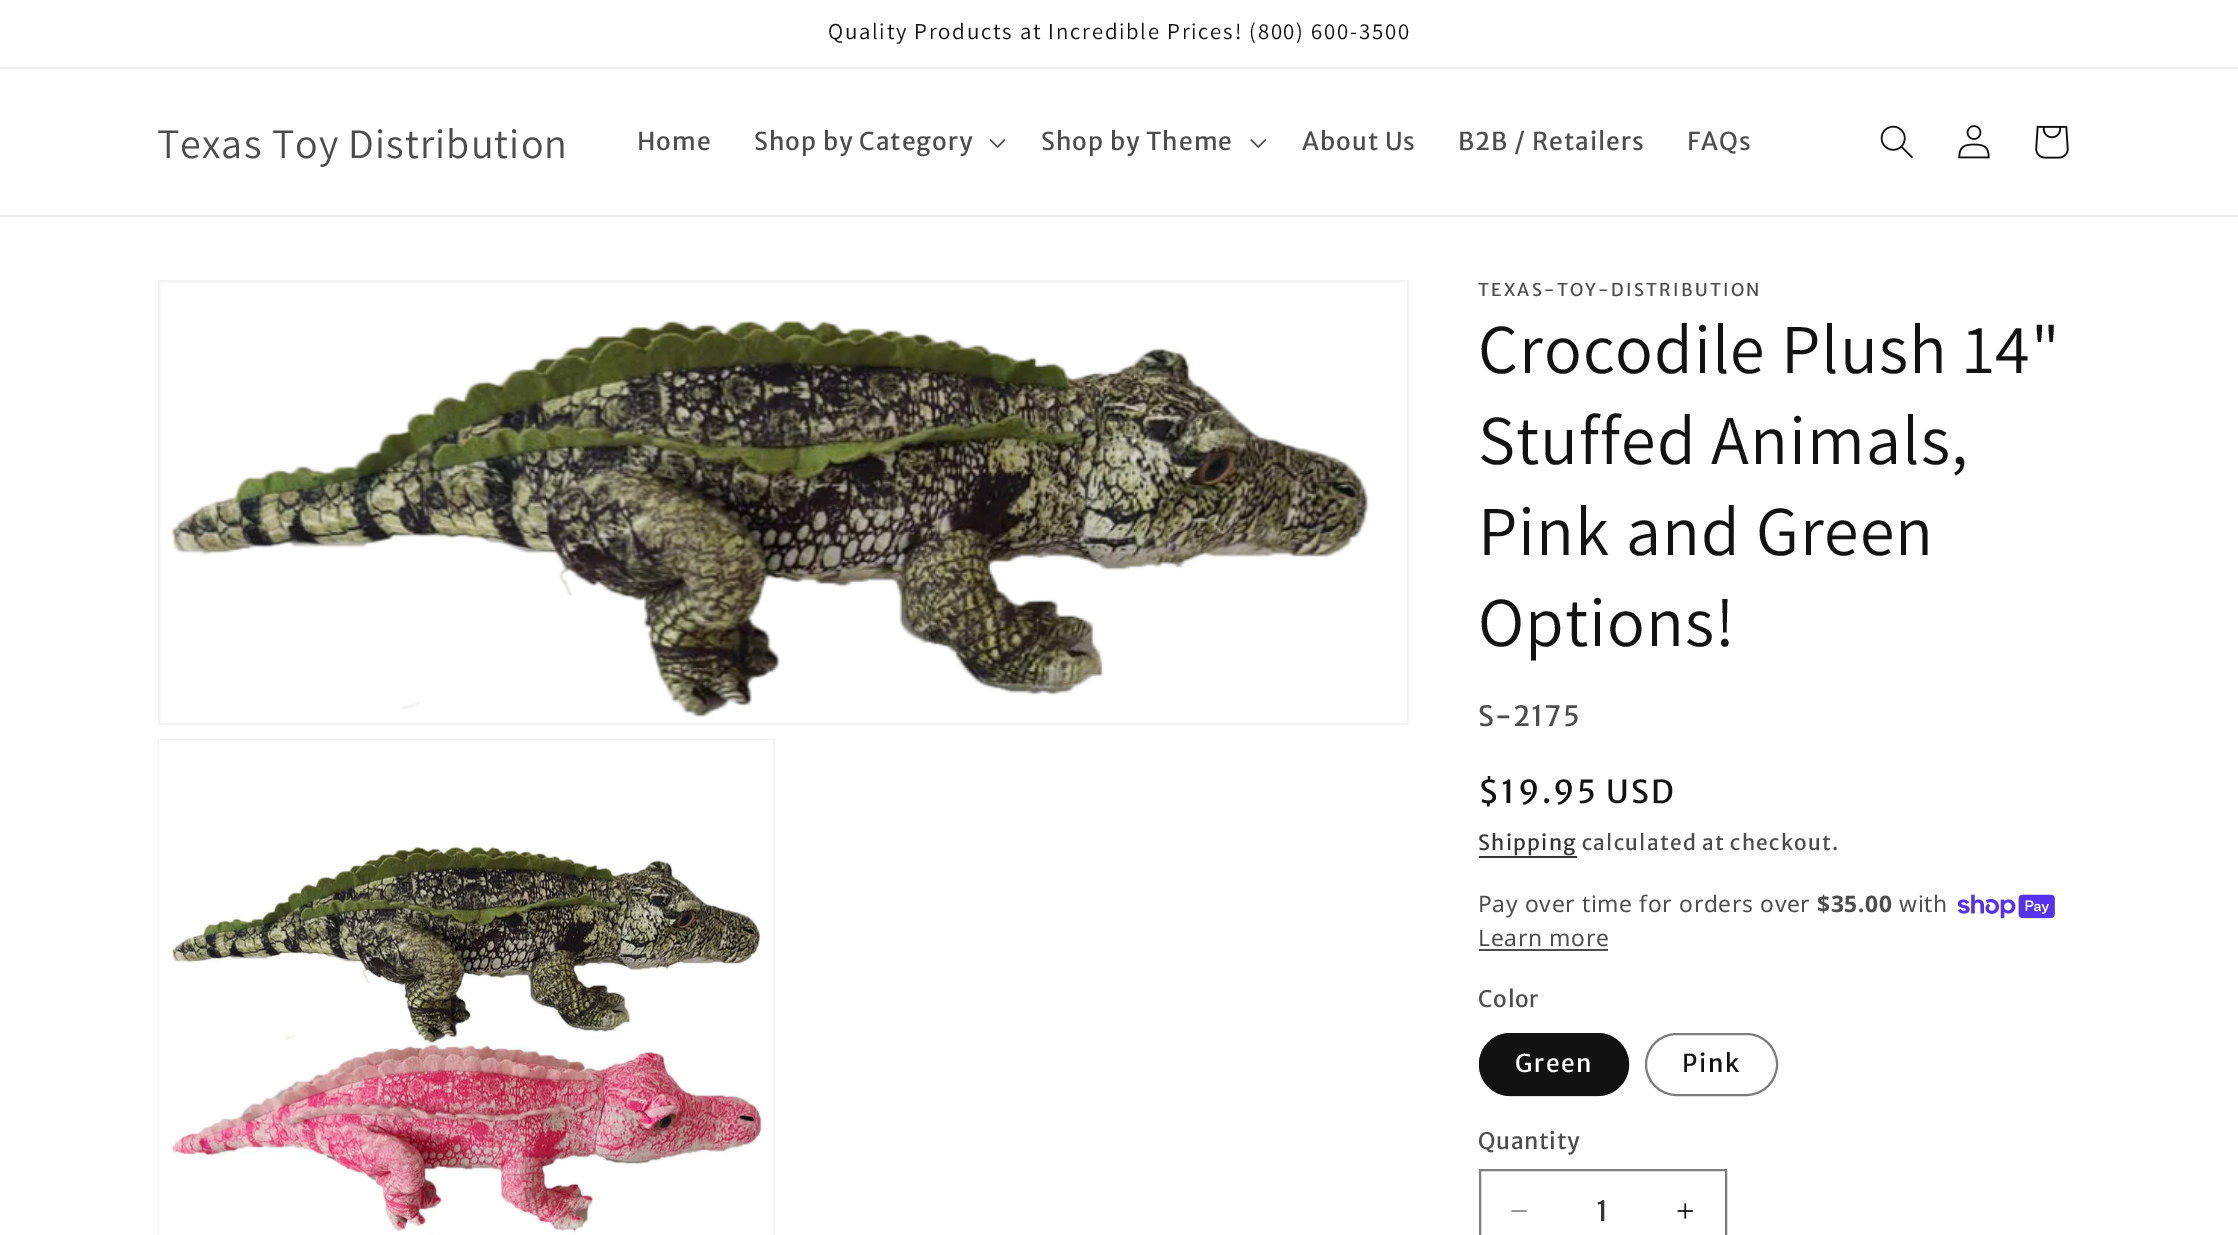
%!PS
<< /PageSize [2238 1235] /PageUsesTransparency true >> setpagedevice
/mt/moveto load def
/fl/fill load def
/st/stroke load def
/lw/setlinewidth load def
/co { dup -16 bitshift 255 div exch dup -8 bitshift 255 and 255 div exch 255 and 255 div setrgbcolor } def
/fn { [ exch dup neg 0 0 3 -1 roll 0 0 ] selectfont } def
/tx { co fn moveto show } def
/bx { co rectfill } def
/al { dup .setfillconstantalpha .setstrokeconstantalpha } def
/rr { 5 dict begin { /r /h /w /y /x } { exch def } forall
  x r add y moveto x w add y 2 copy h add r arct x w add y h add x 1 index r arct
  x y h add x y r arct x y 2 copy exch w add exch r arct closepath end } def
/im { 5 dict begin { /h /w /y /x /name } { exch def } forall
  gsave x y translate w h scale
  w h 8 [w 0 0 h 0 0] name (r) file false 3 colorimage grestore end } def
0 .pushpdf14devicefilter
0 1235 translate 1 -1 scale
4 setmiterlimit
0 0 2238 1235 16#FFFFFF bx
0 67 2238 2 16#ECECEC bx
0 215 2238 2 16#ECECEC bx
(media/1.raw) 989 139 17 9 im
(media/2.raw) 1250 139 16 9 im
(media/3.raw) 1880 125 33 34 im
(media/4.raw) 1958 125 32 34 im
(media/5.raw) 2035 125 34 34 im
16#F3F3F3 co
2 lw
159 281 1249 443 rectstroke
(media/6.raw) 171 320 1198 397 im
159 740 615 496 rectstroke
(media/7.raw) 159 740 614 495 im
1479 856 98 2 16#363636 bx
(media/8.raw) 1957 894 98 25 im
1479 949 129 2 16#4D4D4D bx
16#121212 co
1479 1033 150 63 31.5 rr fl
0.55 al
1480 1034 148 61 30.5 rr st
1 al
16#7D7D7D co
1646 1034 131 61 30.5 rr st
(media/9.raw) 1511 1210 16 2 im
(media/10.raw) 1677 1203 17 16 im
1480 1170 246 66 rectstroke
/Assistant-Regular 22.75 fn
16#121212 co
828 39 mt 1.75 0 (Quality Products at Incredible Prices! \(800\) 600-3500) ashow
/Assistant-Regular 42 fn
16#4D4D4D co
157 158 mt 1.05 0 (Texas Toy Distribution) ashow
/MerriweatherSans-Regular 24.5 fn
637 150 mt 1.05 0 (Home) ashow
754 150 mt 1.05 0 (Shop by Category) ashow
1041 150 mt 1.05 0 (Shop by Theme) ashow
1302 150 mt 1.05 0 (About Us) ashow
1458 150 mt 1.05 0 (B2B / Retailers) ashow
1687 150 mt 1.05 0 (FAQs) ashow
/MerriweatherSans-Regular 17.5 fn
1478 296 mt 2.25 0 (TEXAS-TOY-DISTRIBUTION) ashow
/Assistant-Regular 70 fn
16#121212 co
1478 373 mt 1.05 0 (Crocodile Plush 14") ashow
1478 464 mt 1.05 0 (Stuffed Animals,) ashow
1478 555 mt 1.05 0 (Pink and Green) ashow
1478 646 mt 1.05 0 (Options!) ashow
/MerriweatherSans-Regular 28 fn
16#4D4D4D co
1478 726 mt 1.05 0 (S-2175) ashow
/MerriweatherSans-Regular 31.5 fn
16#121212 co
1478 803 mt 2.25 0 ($19.95 USD) ashow
/MerriweatherSans-Regular 21 fn
16#363636 co
1478 850 mt 1.25 0 (Shipping) ashow
16#4D4D4D co
1582 850 mt 1.25 0 (calculated at checkout.) ashow
/NotoSans-Regular 22.75 fn
1478 912 mt .7 0 (Pay over time for orders over) ashow
/NotoSans-Bold 22.75 fn
1817 912 mt .7 0 ($35.00) ashow
/NotoSans-Regular 22.75 fn
1899 912 mt .7 0 (with) ashow
1478 946 mt .7 0 (Learn more) ashow
/MerriweatherSans-Regular 22.75 fn
1478 1007 mt .7 0 (Color) ashow
/MerriweatherSans-Regular 24.5 fn
16#FFFFFF co
1515 1072 mt 1.75 0 (Green) ashow
16#121212 co
1682 1072 mt 1.75 0 (Pink) ashow
/MerriweatherSans-Regular 22.75 fn
16#4D4D4D co
1478 1149 mt .7 0 (Quantity) ashow
(1) 1596 1221 /MerriweatherSans-Regular 28 16#363636 tx
.poppdf14devicefilter showpage
